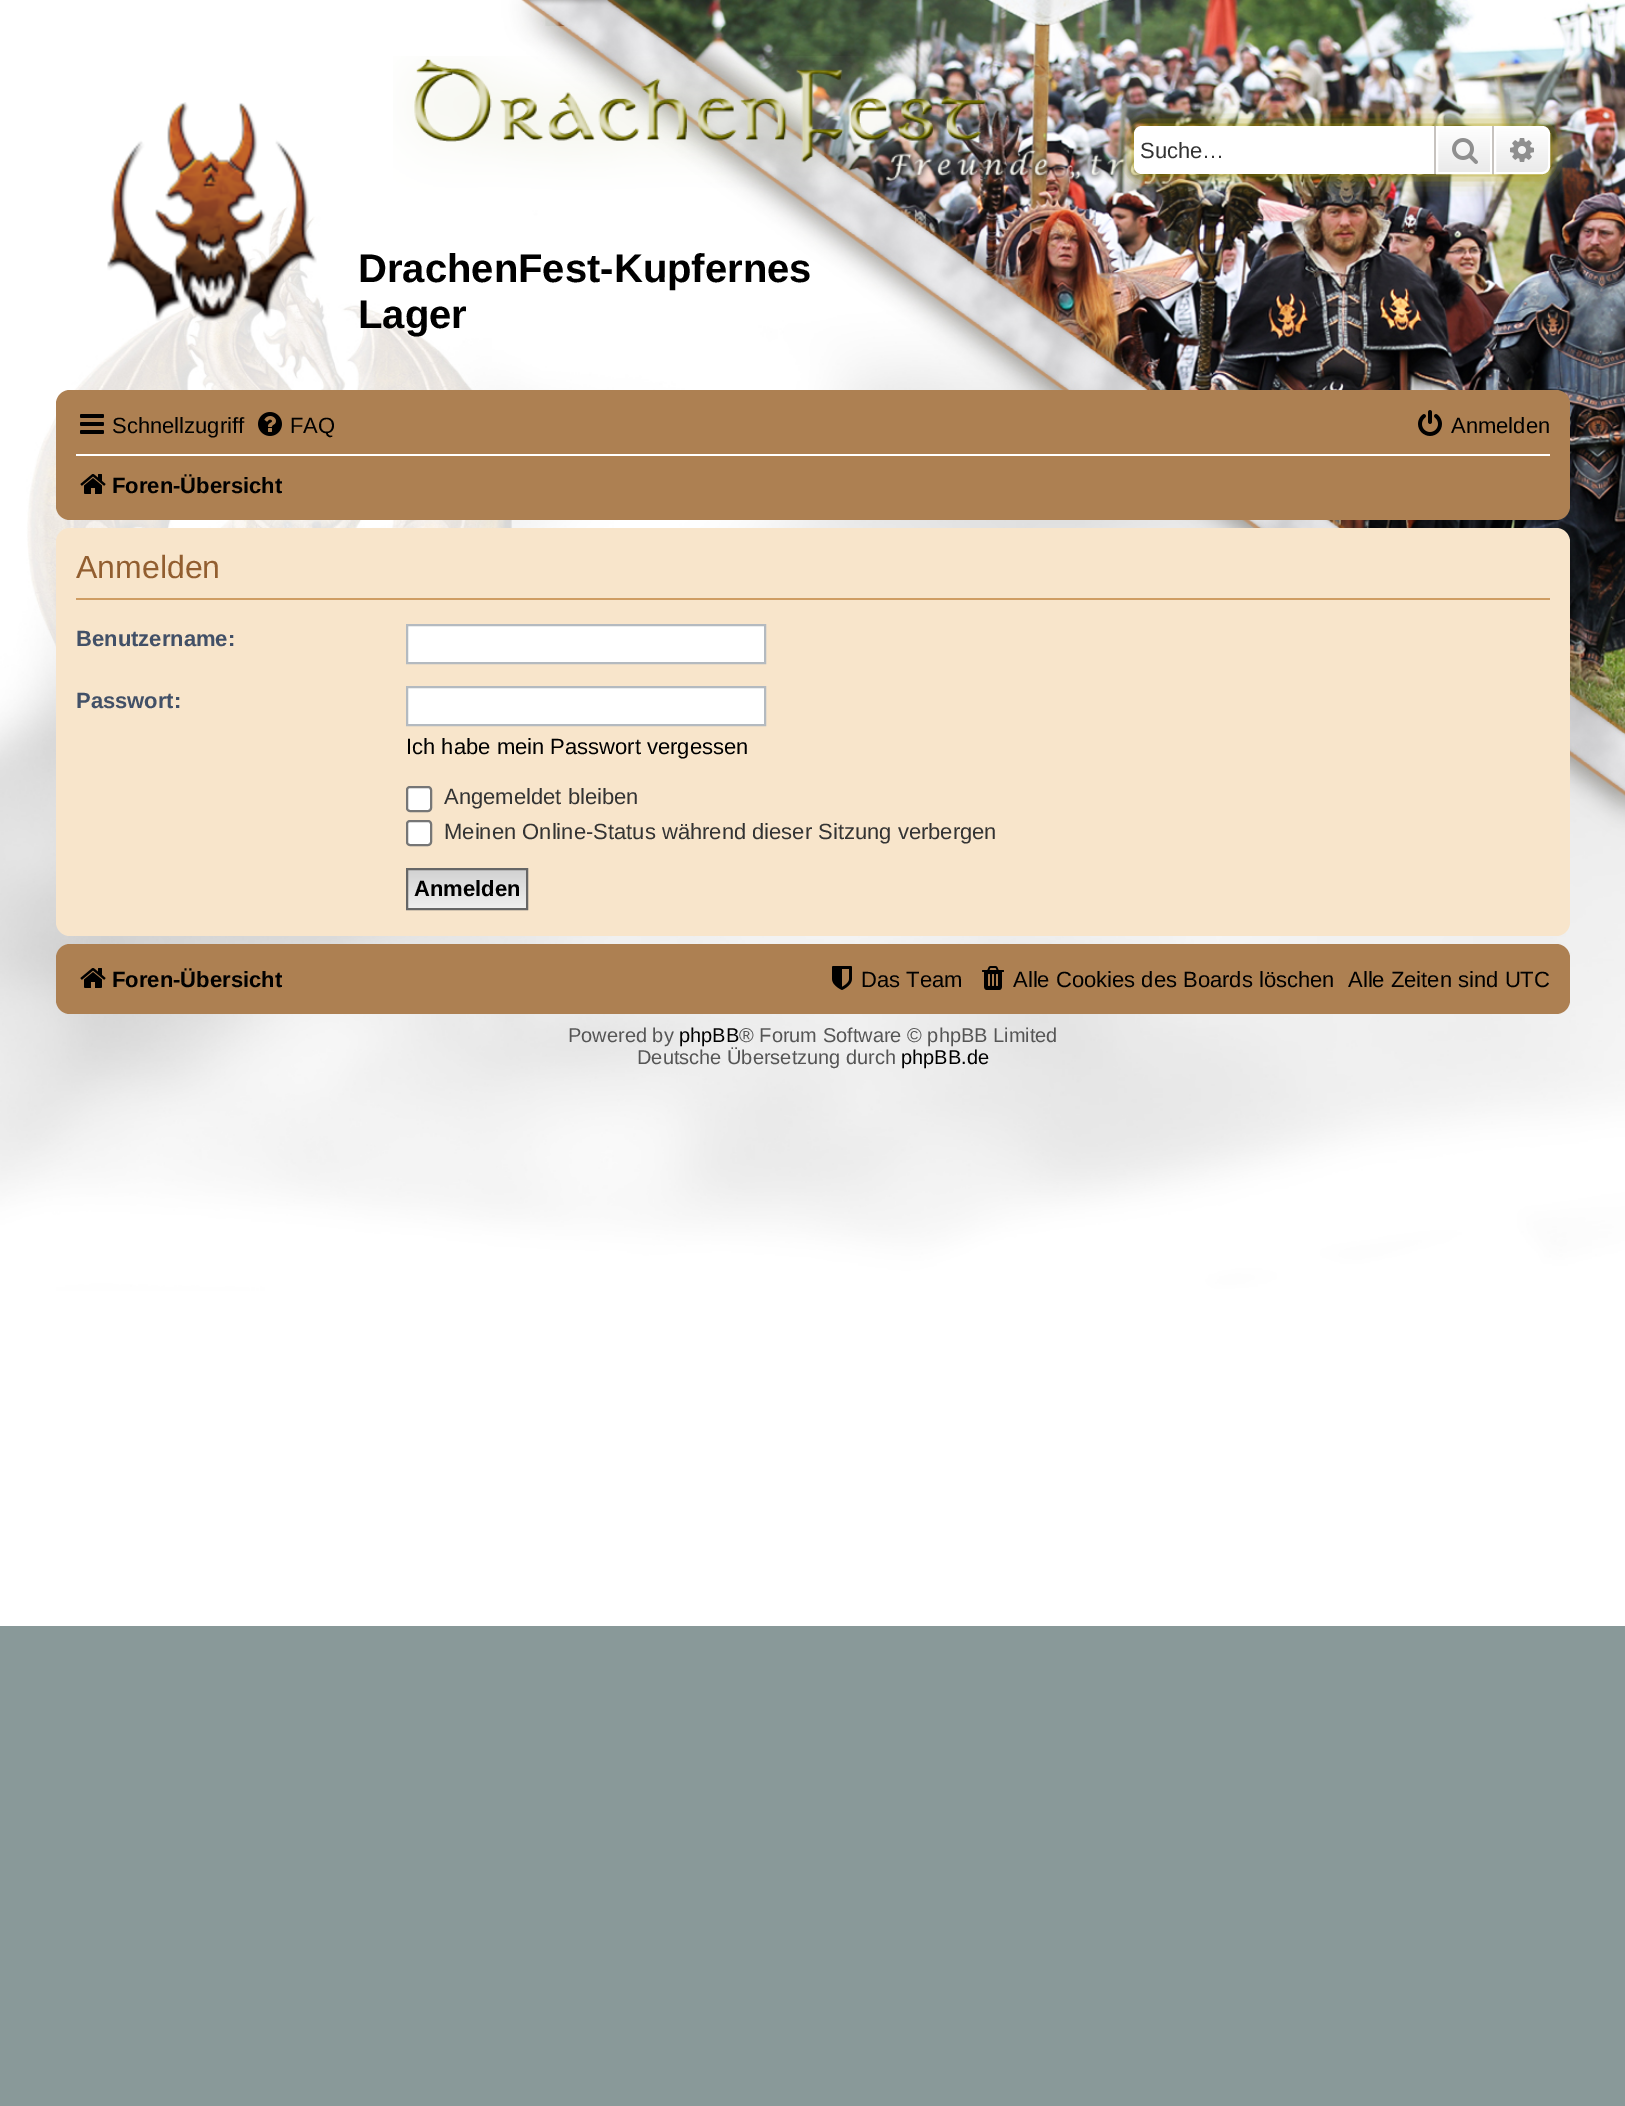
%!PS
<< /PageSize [1625 2106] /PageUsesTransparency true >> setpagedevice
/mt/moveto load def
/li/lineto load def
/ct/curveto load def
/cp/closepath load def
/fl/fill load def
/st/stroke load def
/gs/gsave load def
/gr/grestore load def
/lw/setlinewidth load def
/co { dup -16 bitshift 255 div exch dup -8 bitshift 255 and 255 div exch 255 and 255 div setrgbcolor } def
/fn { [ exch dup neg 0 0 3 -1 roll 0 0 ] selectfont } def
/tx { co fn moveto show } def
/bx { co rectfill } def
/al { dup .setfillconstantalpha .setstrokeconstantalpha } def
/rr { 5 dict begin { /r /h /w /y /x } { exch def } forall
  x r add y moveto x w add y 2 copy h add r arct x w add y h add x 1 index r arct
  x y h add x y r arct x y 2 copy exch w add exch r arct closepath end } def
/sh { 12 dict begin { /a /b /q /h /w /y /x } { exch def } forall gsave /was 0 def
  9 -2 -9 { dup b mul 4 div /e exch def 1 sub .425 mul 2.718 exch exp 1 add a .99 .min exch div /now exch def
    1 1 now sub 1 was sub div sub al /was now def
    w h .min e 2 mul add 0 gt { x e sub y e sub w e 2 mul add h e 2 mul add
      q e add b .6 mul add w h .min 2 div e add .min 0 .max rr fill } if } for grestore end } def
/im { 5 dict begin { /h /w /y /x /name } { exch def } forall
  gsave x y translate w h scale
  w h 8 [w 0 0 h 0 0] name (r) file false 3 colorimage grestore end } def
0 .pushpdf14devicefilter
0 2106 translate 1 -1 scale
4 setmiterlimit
0 0 1625 2106 16#899999 bx
(media/1.raw) 0 1156 1625 470 im
(media/2.raw) 0 0 1625 1156 im
(media/3.raw) 393 56 1038 134 im
16#B09D00 co
1134 126 416 48 8 10 1 sh
16#FFFFFF co
1142 126 mt 1434 126 li 1434 174 li 1142 174 li 1137.5 174 1134 170.5 1134 166 ct 1134 134 li 1134 129.5 1137.5 126 1142 126 ct cp fl
gs 1438 128 mt 1490 128 li 1490 172 li 1438 172 li cp clip newpath
<< /ShadingType 2 /ColorSpace /DeviceRGB /Coords [1464 126 1464 174] /Extend [true true] /Function << /FunctionType 2 /Domain [0 1] /C0 [1 1 1] /C1 [.914 .914 .914] /N 1 >> >> shfill gr
2 lw
1437 127 54 46 rectstroke
1492 126 2 48 16#C7C3BF bx
1434 126 2 48 16#C7C3BF bx
(media/4.raw) 1452 138 26 26 im
gs 1495 127 mt 1542 127 li 1546 127 1549 130 1549 134 ct 1549 166 li 1549 170 1546 173 1542 173 ct 1495 173 li cp clip newpath
<< /ShadingType 2 /ColorSpace /DeviceRGB /Coords [1522 126 1522 174] /Extend [true true] /Function << /FunctionType 2 /Domain [0 1] /C0 [1 1 1] /C1 [.914 .914 .914] /N 1 >> >> shfill gr
16#FFFFFF co
1495 127 mt 1542 127 li 1546 127 1549 130 1549 134 ct 1549 166 li 1549 170 1546 173 1542 173 ct 1495 173 li cp st
(media/5.raw) 1510 138 24 24 im
(media/6.raw) 107 102 210 219 im
16#AD8052 co
56 390 1514 130 14 rr fl
(media/7.raw) 80 414 24 20 im
(media/8.raw) 258 412 24 24 im
(media/9.raw) 1418 410 24 26 im
76 454 1474 2 16#FFFFFF bx
(media/10.raw) 80 474 26 20 im
16#F8E5CB co
56 528 1514 408 14 rr fl
76 598 1474 2 16#CF9D63 bx
16#FFFFFF co
407 625 mt 765 625 li 765 663 li 407 663 li cp gs fl gr
16#B4BAC0 co
st
16#FFFFFF co
407 687 mt 765 687 li 765 725 li 407 725 li cp gs fl gr
16#B4BAC0 co
st
16#FFFFFF co
407 787 24 24 3 rr gs fl gr
16#767676 co
st
16#FFFFFF co
407 821 24 24 3 rr gs fl gr
16#767676 co
st
gs 408 870 mt 526 870 li 526 908 li 408 908 li cp clip newpath
<< /ShadingType 2 /ColorSpace /DeviceRGB /Coords [467 870 467 908] /Extend [true true] /Function << /FunctionType 2 /Domain [0 1] /C0 [.824 .824 .824] /C1 [.937 .937 .937] /N 1 >> >> shfill gr
16#666666 co
407 869 120 40 rectstroke
16#AD8052 co
56 944 1514 70 14 rr fl
(media/10.raw) 80 968 26 20 im
(media/11.raw) 832 966 20 24 im
(media/12.raw) 982 966 22 24 im
(Suche…) 1140 158 /LiberationSans-Regular 22 16#333333 tx
(DrachenFest-Kupfernes) 358 282 /LiberationSans-Bold 40 16#000000 tx
(Lager) 358 328 /LiberationSans-Bold 40 16#000000 tx
(Schnellzugriff) 112 433 /LiberationSans-Regular 22 16#000000 tx
(FAQ) 290 433 /LiberationSans-Regular 22 16#000000 tx
(Anmelden) 1451 433 /LiberationSans-Regular 22 16#000000 tx
(Foren-Übersicht) 112 493 /LiberationSans-Bold 22 16#000000 tx
(Anmelden) 76 578 /LiberationSans-Regular 32 16#925E30 tx
(Benutzername:) 76 646 /LiberationSans-Bold 22 16#425067 tx
(Passwort:) 76 708 /LiberationSans-Bold 22 16#425067 tx
(Ich habe mein Passwort vergessen) 406 754 /LiberationSans-Regular 22 16#000000 tx
(Angemeldet bleiben) 444 804 /LiberationSans-Regular 22 16#333333 tx
(Meinen Online-Status während dieser Sitzung verbergen) 444 839 /LiberationSans-Regular 22 16#333333 tx
(Anmelden) 414 896 /LiberationSans-Bold 22 16#000000 tx
(Foren-Übersicht) 112 987 /LiberationSans-Bold 22 16#000000 tx
(Das Team) 861 987 /LiberationSans-Regular 22 16#000000 tx
(Alle Cookies des Boards löschen) 1013 987 /LiberationSans-Regular 22 16#000000 tx
(Alle Zeiten sind UTC) 1348 987 /LiberationSans-Regular 22 16#000000 tx
(Powered by) 568 1042 /LiberationSans-Regular 20 16#555555 tx
(phpBB) 679 1042 /LiberationSans-Regular 20 16#000000 tx
(® Forum Software © phpBB Limited) 739 1042 /LiberationSans-Regular 20 16#555555 tx
(Deutsche Übersetzung durch) 637 1064 /LiberationSans-Regular 20 16#555555 tx
(phpBB.de) 901 1064 /LiberationSans-Regular 20 16#000000 tx
.poppdf14devicefilter showpage
